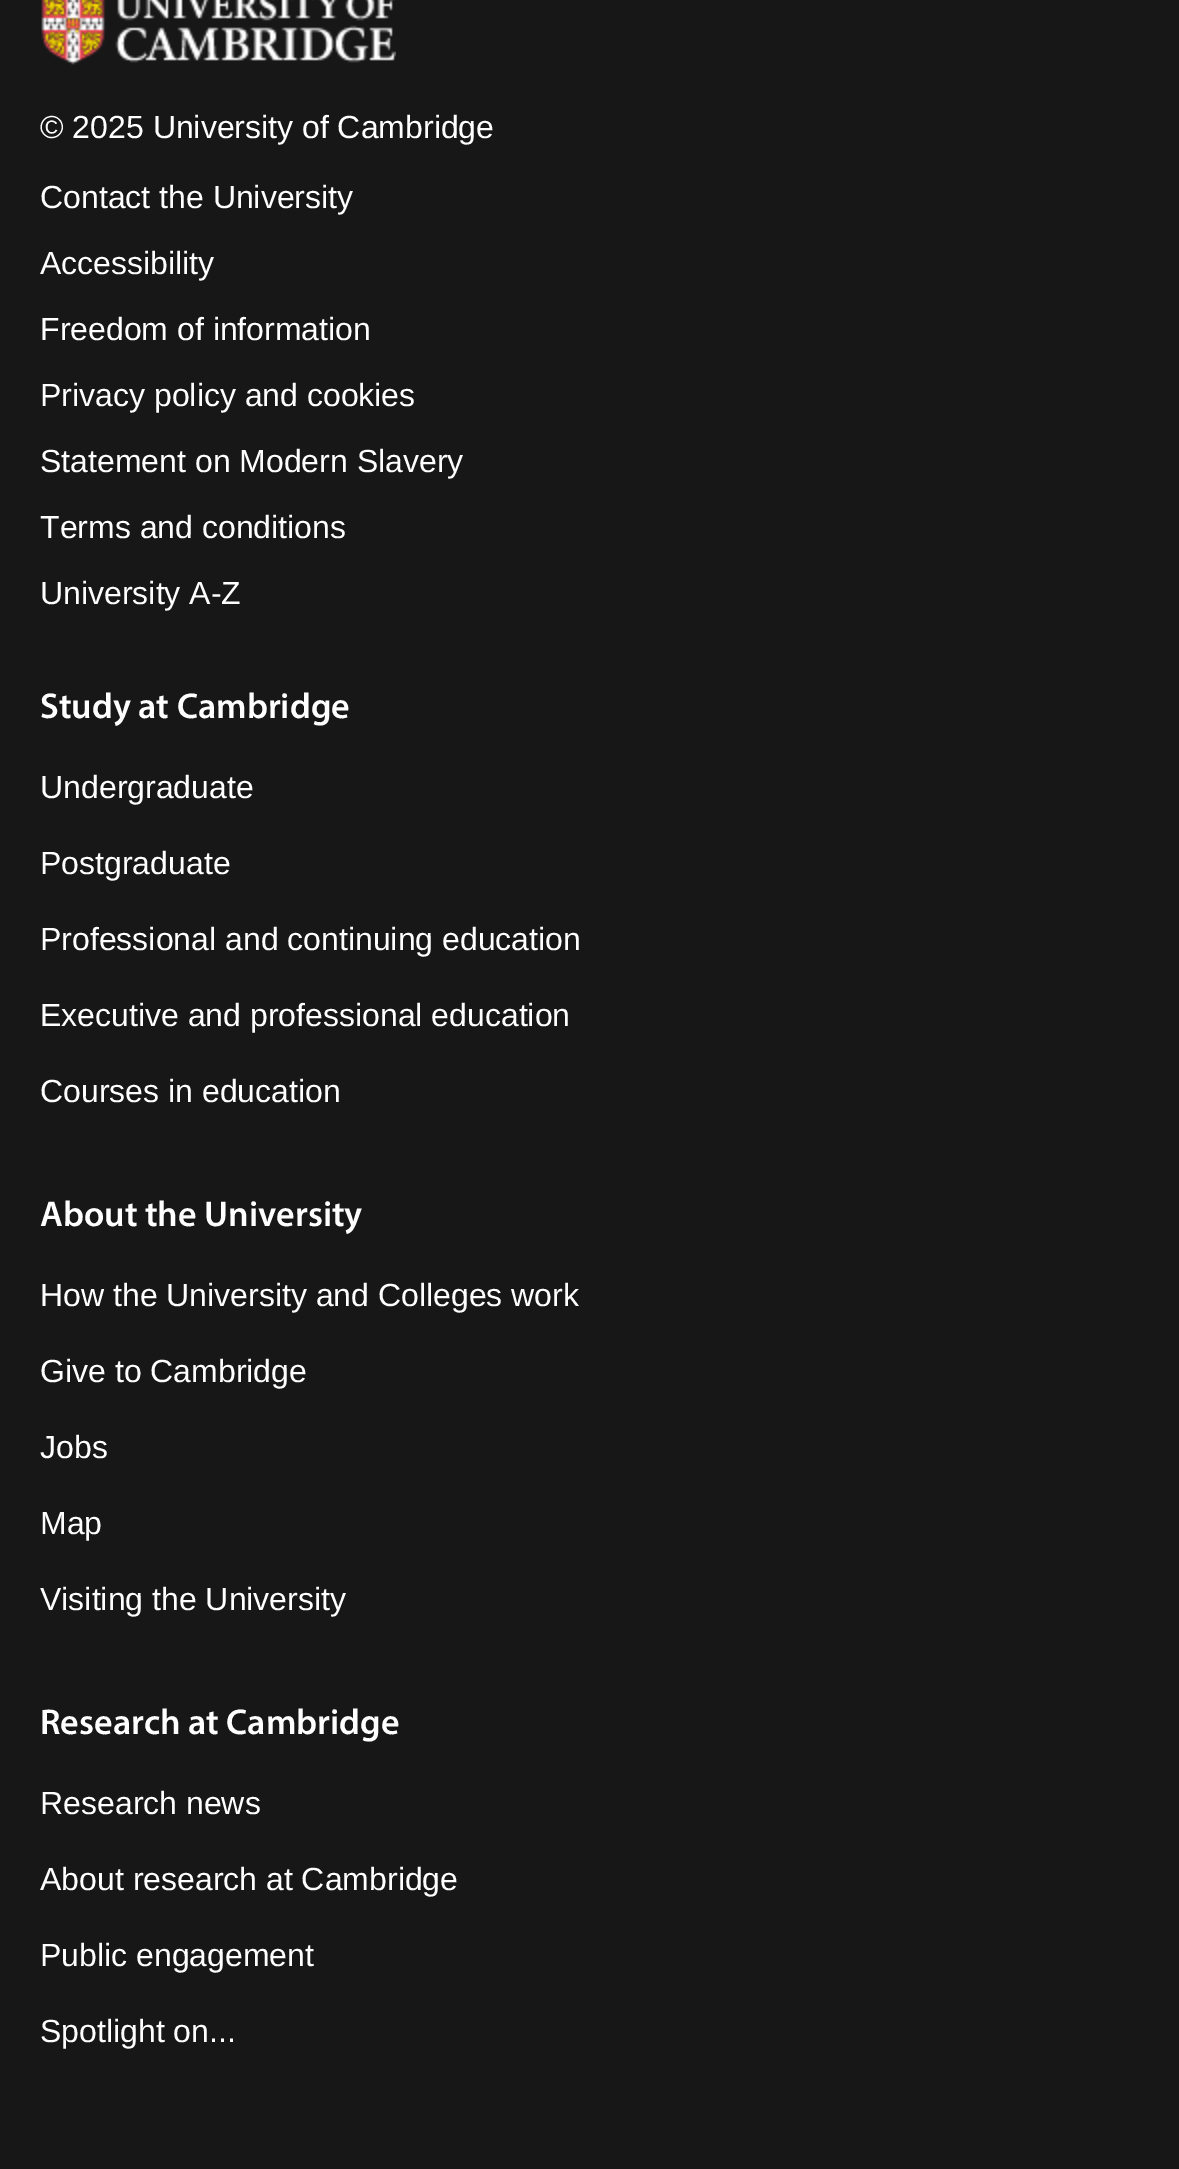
%!PS
<< /PageSize [1179 2169] >> setpagedevice
/co { dup -16 bitshift 255 div exch dup -8 bitshift 255 and 255 div exch 255 and 255 div setrgbcolor } def
/fn { [ exch dup neg 0 0 3 -1 roll 0 0 ] selectfont } def
/tx { co fn moveto show } def
/bx { co rectfill } def
/im { 5 dict begin { /h /w /y /x /name } { exch def } forall
  gsave x y translate w h scale
  w h 8 [w 0 0 h 0 0] name (r) file false 3 colorimage grestore end } def
0 2169 translate 1 -1 scale
4 setmiterlimit
0 0 1179 2169 16#171717 bx
(media/1.raw) 41 0 355 65 im
(© 2025 University of Cambridge) 40 138 /LiberationSans-Regular 32 16#FFFFFF tx
(Contact the University) 40 208 /LiberationSans-Regular 32 16#FFFFFF tx
(Accessibility) 40 274 /LiberationSans-Regular 32 16#FFFFFF tx
(Freedom of information) 40 340 /LiberationSans-Regular 32 16#FFFFFF tx
(Privacy policy and cookies) 40 406 /LiberationSans-Regular 32 16#FFFFFF tx
(Statement on Modern Slavery) 40 472 /LiberationSans-Regular 32 16#FFFFFF tx
(Terms and conditions) 40 538 /LiberationSans-Regular 32 16#FFFFFF tx
(University A-Z) 40 604 /LiberationSans-Regular 32 16#FFFFFF tx
(Study at Cambridge) 40 718 /Myriad-SemiBold 36 16#FFFFFF tx
(Undergraduate) 40 798 /LiberationSans-Regular 32 16#FFFFFF tx
(Postgraduate) 40 874 /LiberationSans-Regular 32 16#FFFFFF tx
(Professional and continuing education) 40 950 /LiberationSans-Regular 32 16#FFFFFF tx
(Executive and professional education) 40 1026 /LiberationSans-Regular 32 16#FFFFFF tx
(Courses in education) 40 1102 /LiberationSans-Regular 32 16#FFFFFF tx
(About the University) 40 1226 /Myriad-SemiBold 36 16#FFFFFF tx
(How the University and Colleges work) 40 1306 /LiberationSans-Regular 32 16#FFFFFF tx
(Give to Cambridge) 40 1382 /LiberationSans-Regular 32 16#FFFFFF tx
(Jobs) 40 1458 /LiberationSans-Regular 32 16#FFFFFF tx
(Map) 40 1534 /LiberationSans-Regular 32 16#FFFFFF tx
(Visiting the University) 40 1610 /LiberationSans-Regular 32 16#FFFFFF tx
(Research at Cambridge) 40 1734 /Myriad-SemiBold 36 16#FFFFFF tx
(Research news) 40 1814 /LiberationSans-Regular 32 16#FFFFFF tx
(About research at Cambridge) 40 1890 /LiberationSans-Regular 32 16#FFFFFF tx
(Public engagement) 40 1966 /LiberationSans-Regular 32 16#FFFFFF tx
(Spotlight on...) 40 2042 /LiberationSans-Regular 32 16#FFFFFF tx
showpage
